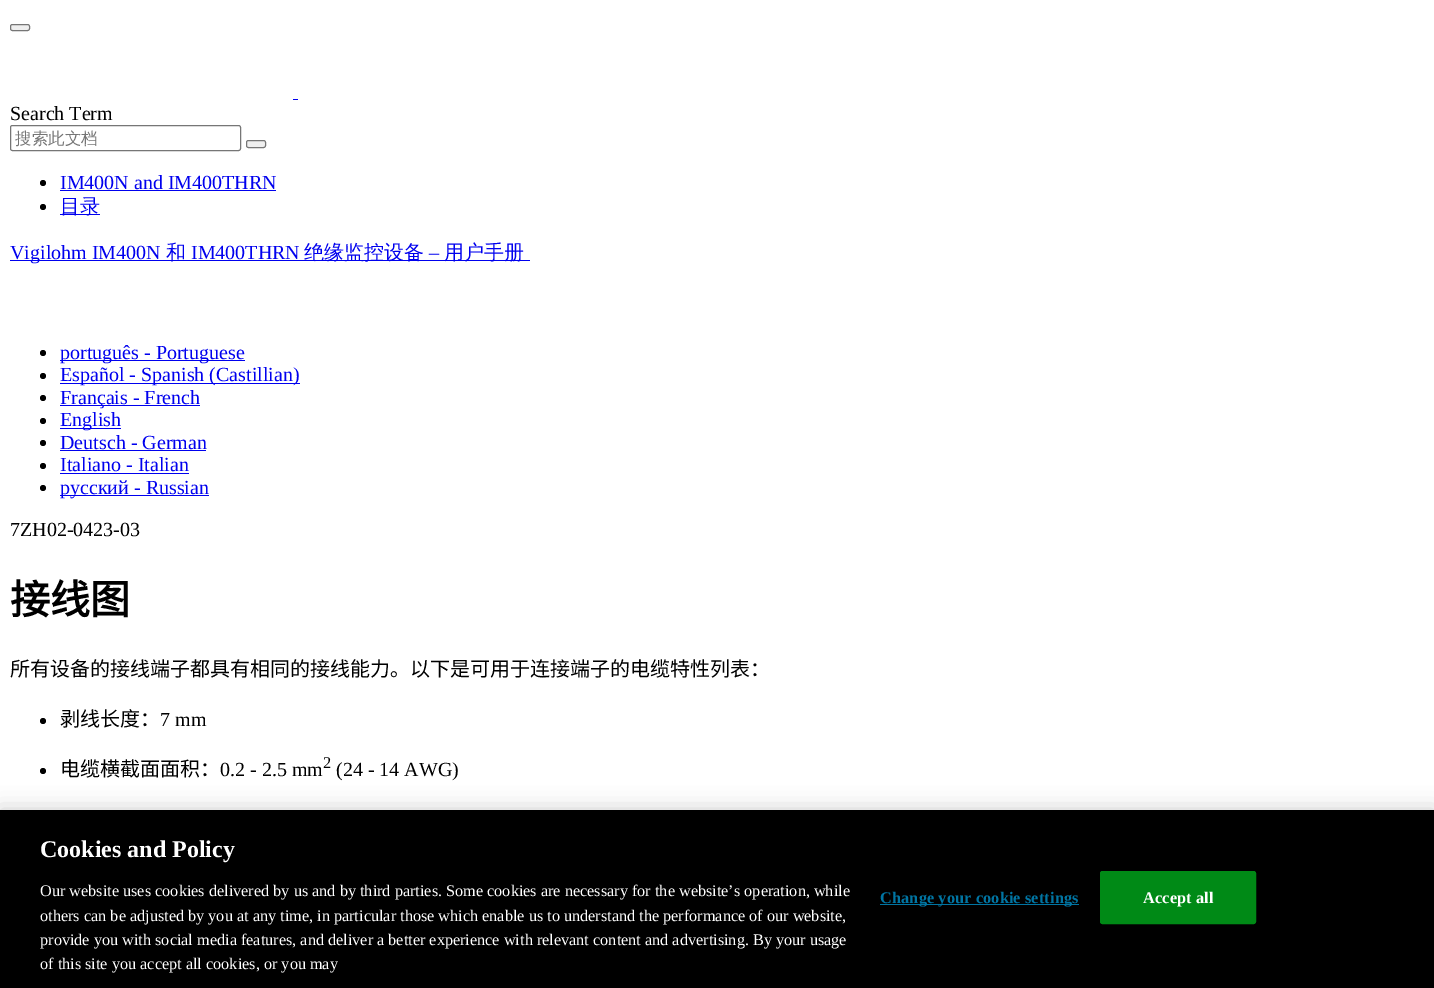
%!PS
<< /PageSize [1434 988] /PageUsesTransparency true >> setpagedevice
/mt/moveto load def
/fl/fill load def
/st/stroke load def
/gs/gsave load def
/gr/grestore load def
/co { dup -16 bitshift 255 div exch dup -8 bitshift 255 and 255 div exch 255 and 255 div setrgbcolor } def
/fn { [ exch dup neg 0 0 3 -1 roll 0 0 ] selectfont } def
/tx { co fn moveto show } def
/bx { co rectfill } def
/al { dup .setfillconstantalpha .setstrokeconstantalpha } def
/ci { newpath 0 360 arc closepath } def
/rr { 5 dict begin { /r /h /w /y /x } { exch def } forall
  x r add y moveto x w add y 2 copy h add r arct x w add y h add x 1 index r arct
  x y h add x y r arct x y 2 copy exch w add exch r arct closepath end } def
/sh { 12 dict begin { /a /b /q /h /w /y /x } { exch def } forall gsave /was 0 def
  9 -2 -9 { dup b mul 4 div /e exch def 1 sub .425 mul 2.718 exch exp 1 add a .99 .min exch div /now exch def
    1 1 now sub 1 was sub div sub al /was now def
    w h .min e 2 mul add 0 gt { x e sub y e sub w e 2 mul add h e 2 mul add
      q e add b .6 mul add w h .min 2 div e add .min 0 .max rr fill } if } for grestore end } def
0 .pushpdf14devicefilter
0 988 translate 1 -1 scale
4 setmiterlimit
0 0 1434 988 16#FFFFFF bx
16#EFEFEF co
10.5 24.5 19 6 2 rr gs fl gr
16#767676 co
st
293 99 5 1 16#0000EE bx
16#767676 co
10.5 125.5 230 25 2 rr st
16#EFEFEF co
246.5 140.5 19 7 2 rr gs fl gr
16#767676 co
st
16#000000 co
43 183 3 ci fl
60 190 216 1 16#0000EE bx
16#000000 co
43 207 3 ci fl
60 214 40 1 16#0000EE bx
10 260 520 1 16#0000EE bx
16#000000 co
43 353 3 ci fl
60 360 185 1 16#0000EE bx
16#000000 co
43 376 3 ci fl
60 383 240 1 16#0000EE bx
16#000000 co
43 398 3 ci fl
60 405 140 1 16#0000EE bx
16#000000 co
43 421 3 ci fl
60 428 61 1 16#0000EE bx
16#000000 co
43 443 3 ci fl
60 450 146 1 16#0000EE bx
16#000000 co
43 466 3 ci fl
60 473 129 1 16#0000EE bx
16#000000 co
43 488 3 ci fl
60 495 149 1 16#0000EE bx
16#000000 co
43 721 3 ci fl
43 771 3 ci fl
0 810 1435 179 0 11 .2 sh
0 810 1434 178 16#000000 bx
880 904 199 1 16#0075A3 bx
16#008A16 co
1100.5 871.5 155 52 2 rr gs fl gr
st
(Search Term) 10 120 /LiberationSerif-Regular 20 16#000000 tx
(搜索此文档) 15 144 /WenQuanYiZenHei-Medium 16.5 16#757575 tx
(IM400N and IM400THRN) 60 189 /LiberationSerif-Regular 20 16#0000EE tx
(目录) 60 213 /WenQuanYiZenHei-Medium 20 16#0000EE tx
(Vigilohm IM400N) 10 259 /LiberationSerif-Regular 20 16#0000EE tx
(和) 166 259 /WenQuanYiZenHei-Medium 20 16#0000EE tx
(IM400THRN) 191 259 /LiberationSerif-Regular 20 16#0000EE tx
(绝缘监控设备) 304 259 /WenQuanYiZenHei-Medium 20 16#0000EE tx
(–) 429 259 /LiberationSerif-Regular 20 16#0000EE tx
(用户手册) 444 259 /WenQuanYiZenHei-Medium 20 16#0000EE tx
(português - Portuguese) 60 359 /LiberationSerif-Regular 20 16#0000EE tx
(Español - Spanish \(Castillian\)) 60 381 /LiberationSerif-Regular 20 16#0000EE tx
(Français - French) 60 404 /LiberationSerif-Regular 20 16#0000EE tx
(English) 60 426 /LiberationSerif-Regular 20 16#0000EE tx
(Deutsch - German) 60 449 /LiberationSerif-Regular 20 16#0000EE tx
(Italiano - Italian) 60 471 /LiberationSerif-Regular 20 16#0000EE tx
(русский - Russian) 60 494 /LiberationSerif-Regular 20 16#0000EE tx
(7ZH02-0423-03) 10 536 /LiberationSerif-Regular 20 16#000000 tx
(接线图) 10 614 /NotoSansCJKSC-Bold 40 16#000000 tx
(所有设备的接线端子都具有相同的接线能力。以下是可用于连接端子的电缆特性列表：) 10 676 /NotoSansCJKSC-Regular 20 16#000000 tx
(剥线长度：) 60 726 /NotoSansCJKSC-Regular 20 16#000000 tx
(7 mm) 160 726 /LiberationSerif-Regular 20 16#000000 tx
(电缆横截面面积：) 60 776 /NotoSansCJKSC-Regular 20 16#000000 tx
(0.2 - 2.5 mm) 220 776 /LiberationSerif-Regular 20 16#000000 tx
(2) 323 768 /LiberationSerif-Regular 16.5 16#000000 tx
(\(24 - 14 AWG\)) 336 776 /LiberationSerif-Regular 20 16#000000 tx
(Cookies and Policy) 40 857 /LiberationSerif-Bold 24 16#FFFFFF tx
(Our website uses cookies delivered by us and by third parties. Some cookies are necessary for the website’s operation, while) 40 896 /LiberationSerif-Regular 16.25 16#FFFFFF tx
(others can be adjusted by you at any time, in particular those which enable us to understand the performance of our website,) 40 921 /LiberationSerif-Regular 16.25 16#FFFFFF tx
(provide you with social media features, and deliver a better experience with relevant content and advertising. By your usage) 40 945 /LiberationSerif-Regular 16.25 16#FFFFFF tx
(of this site you accept all cookies, or you may) 40 969 /LiberationSerif-Regular 16.25 16#FFFFFF tx
/LiberationSerif-Bold 16.25 fn
16#0075A3 co
880 903 mt .15 0 (Change your cookie settings) ashow
16#FFFFFF co
1143 903 mt .15 0 (Accept all) ashow
.poppdf14devicefilter showpage
